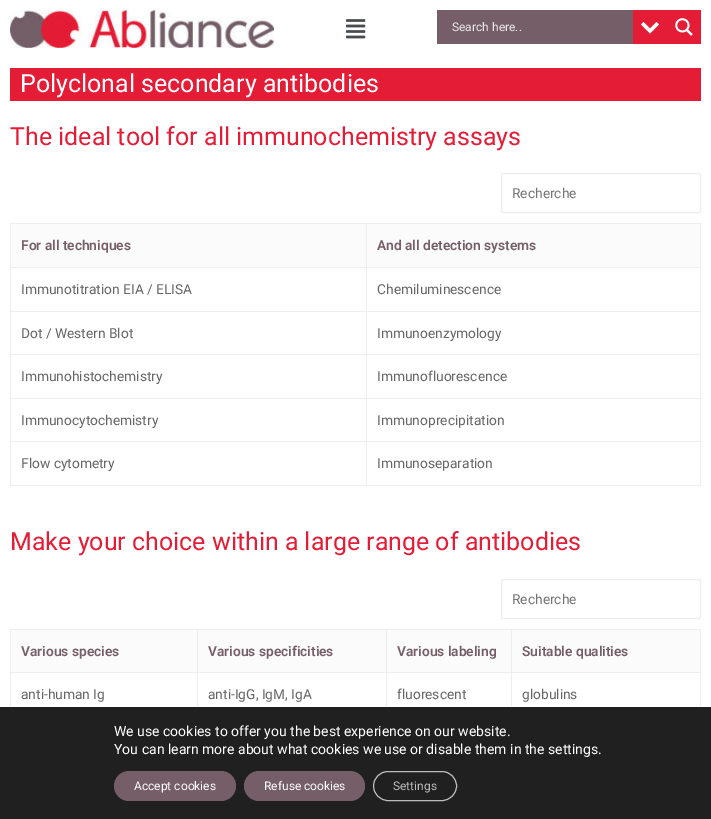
%!PS
<< /PageSize [711 819] >> setpagedevice
/mt/moveto load def
/li/lineto load def
/cp/closepath load def
/fl/fill load def
/st/stroke load def
/co { dup -16 bitshift 255 div exch dup -8 bitshift 255 and 255 div exch 255 and 255 div setrgbcolor } def
/fn { [ exch dup neg 0 0 3 -1 roll 0 0 ] selectfont } def
/tx { co fn moveto show } def
/bx { co rectfill } def
/rr { 5 dict begin { /r /h /w /y /x } { exch def } forall
  x r add y moveto x w add y 2 copy h add r arct x w add y h add x 1 index r arct
  x y h add x y r arct x y 2 copy exch w add exch r arct closepath end } def
/im { 5 dict begin { /h /w /y /x /name } { exch def } forall
  gsave x y translate w h scale
  w h 8 [w 0 0 h 0 0] name (r) file false 3 colorimage grestore end } def
0 819 translate 1 -1 scale
4 setmiterlimit
0 0 711 819 16#FFFFFF bx
(media/1.raw) 10 10 264 38 im
(media/2.raw) 346 19 20 20 im
437 10 196 34 16#755E68 bx
633 10 68 34 16#E41C36 bx
16#FFFFFF co
656.5 22 mt 659 24.5 li 650 33.5 li 641 24.5 li 643.5 22 li 650 28.5 li cp fl
(media/3.raw) 675 18 18 18 im
10 68 691 33 16#E41C36 bx
16#EEEEEE co
501.5 173.5 199 39 1.5 rr st
10 223 691 1 16#EEEEEE bx
700 223 1 263 16#EEEEEE bx
10 485 691 1 16#EEEEEE bx
10 223 1 263 16#EEEEEE bx
11 224 689 43 16#FBFBFB bx
366 267 335 1 16#EEEEEE bx
366 311 335 1 16#EEEEEE bx
366 354 335 1 16#EEEEEE bx
366 398 335 1 16#EEEEEE bx
366 441 335 1 16#EEEEEE bx
366 441 1 45 16#EEEEEE bx
10 441 357 1 16#EEEEEE bx
366 398 1 44 16#EEEEEE bx
10 398 357 1 16#EEEEEE bx
366 354 1 45 16#EEEEEE bx
10 354 357 1 16#EEEEEE bx
366 311 1 44 16#EEEEEE bx
10 311 357 1 16#EEEEEE bx
366 267 1 45 16#EEEEEE bx
10 267 357 1 16#EEEEEE bx
366 223 1 45 16#EEEEEE bx
501.5 579.5 199 39 1.5 rr st
10 629 691 1 16#EEEEEE bx
700 629 1 77 16#EEEEEE bx
10 629 1 77 16#EEEEEE bx
11 630 689 42 16#FBFBFB bx
511 672 190 1 16#EEEEEE bx
511 672 1 34 16#EEEEEE bx
386 672 126 1 16#EEEEEE bx
386 672 1 34 16#EEEEEE bx
197 672 190 1 16#EEEEEE bx
197 672 1 34 16#EEEEEE bx
10 672 188 1 16#EEEEEE bx
197 629 1 44 16#EEEEEE bx
386 629 1 44 16#EEEEEE bx
511 629 1 44 16#EEEEEE bx
0 707 711 112 16#202020 bx
16#755E68 co
114 771 122 30 15 rr fl
244 771 121 30 15 rr fl
16#BCBCBC co
373.5 771.5 83 29 14.5 rr st
(Search here..) 452 31 /Roboto-Regular 12 16#EAE7E8 tx
(Polyclonal secondary antibodies) 20 92 /Roboto-Regular 25 16#FFFFFF tx
(The ideal tool for all immunochemistry assays) 10 145 /Roboto-Regular 25 16#E41C36 tx
(Recherche) 512 198 /Roboto-Regular 13.75 16#757575 tx
(For all techniques) 21 250 /Roboto-SemiBold 13.75 16#755E68 tx
(And all detection systems) 377 250 /Roboto-SemiBold 13.75 16#755E68 tx
(Immunotitration EIA / ELISA) 21 294 /Roboto-Regular 13.75 16#666666 tx
(Chemiluminescence) 377 294 /Roboto-Regular 13.75 16#666666 tx
(Dot / Western Blot) 21 338 /Roboto-Regular 13.75 16#666666 tx
(Immunoenzymology) 377 338 /Roboto-Regular 13.75 16#666666 tx
(Immunohistochemistry) 21 381 /Roboto-Regular 13.75 16#666666 tx
(Immunofluorescence) 377 381 /Roboto-Regular 13.75 16#666666 tx
(Immunocytochemistry) 21 425 /Roboto-Regular 13.75 16#666666 tx
(Immunoprecipitation) 377 425 /Roboto-Regular 13.75 16#666666 tx
(Flow cytometry) 21 468 /Roboto-Regular 13.75 16#666666 tx
(Immunoseparation) 377 468 /Roboto-Regular 13.75 16#666666 tx
(Make your choice within a large range of antibodies) 10 550 /Roboto-Regular 25 16#E41C36 tx
(Recherche) 512 604 /Roboto-Regular 13.75 16#757575 tx
(Various species) 21 656 /Roboto-SemiBold 13.75 16#755E68 tx
(Various specificities) 208 656 /Roboto-SemiBold 13.75 16#755E68 tx
(Various labeling) 397 656 /Roboto-SemiBold 13.75 16#755E68 tx
(Suitable qualities) 522 656 /Roboto-SemiBold 13.75 16#755E68 tx
(anti-human Ig) 21 699 /Roboto-Regular 13.75 16#666666 tx
(anti-IgG, IgM, IgA) 208 699 /Roboto-Regular 13.75 16#666666 tx
(fluorescent) 397 699 /Roboto-Regular 13.75 16#666666 tx
(globulins) 522 699 /Roboto-Regular 13.75 16#666666 tx
(We use cookies to offer you the best experience on our website.) 114 736 /Roboto-Regular 14 16#FFFFFF tx
(You can learn more about what cookies we use or disable them in the settings.) 114 754 /Roboto-Regular 14 16#FFFFFF tx
(Accept cookies) 134 790 /Roboto-Regular 12 16#FFFFFF tx
(Refuse cookies) 264 790 /Roboto-Regular 12 16#FFFFFF tx
(Settings) 393 790 /Roboto-Regular 12 16#BCBCBC tx
showpage
